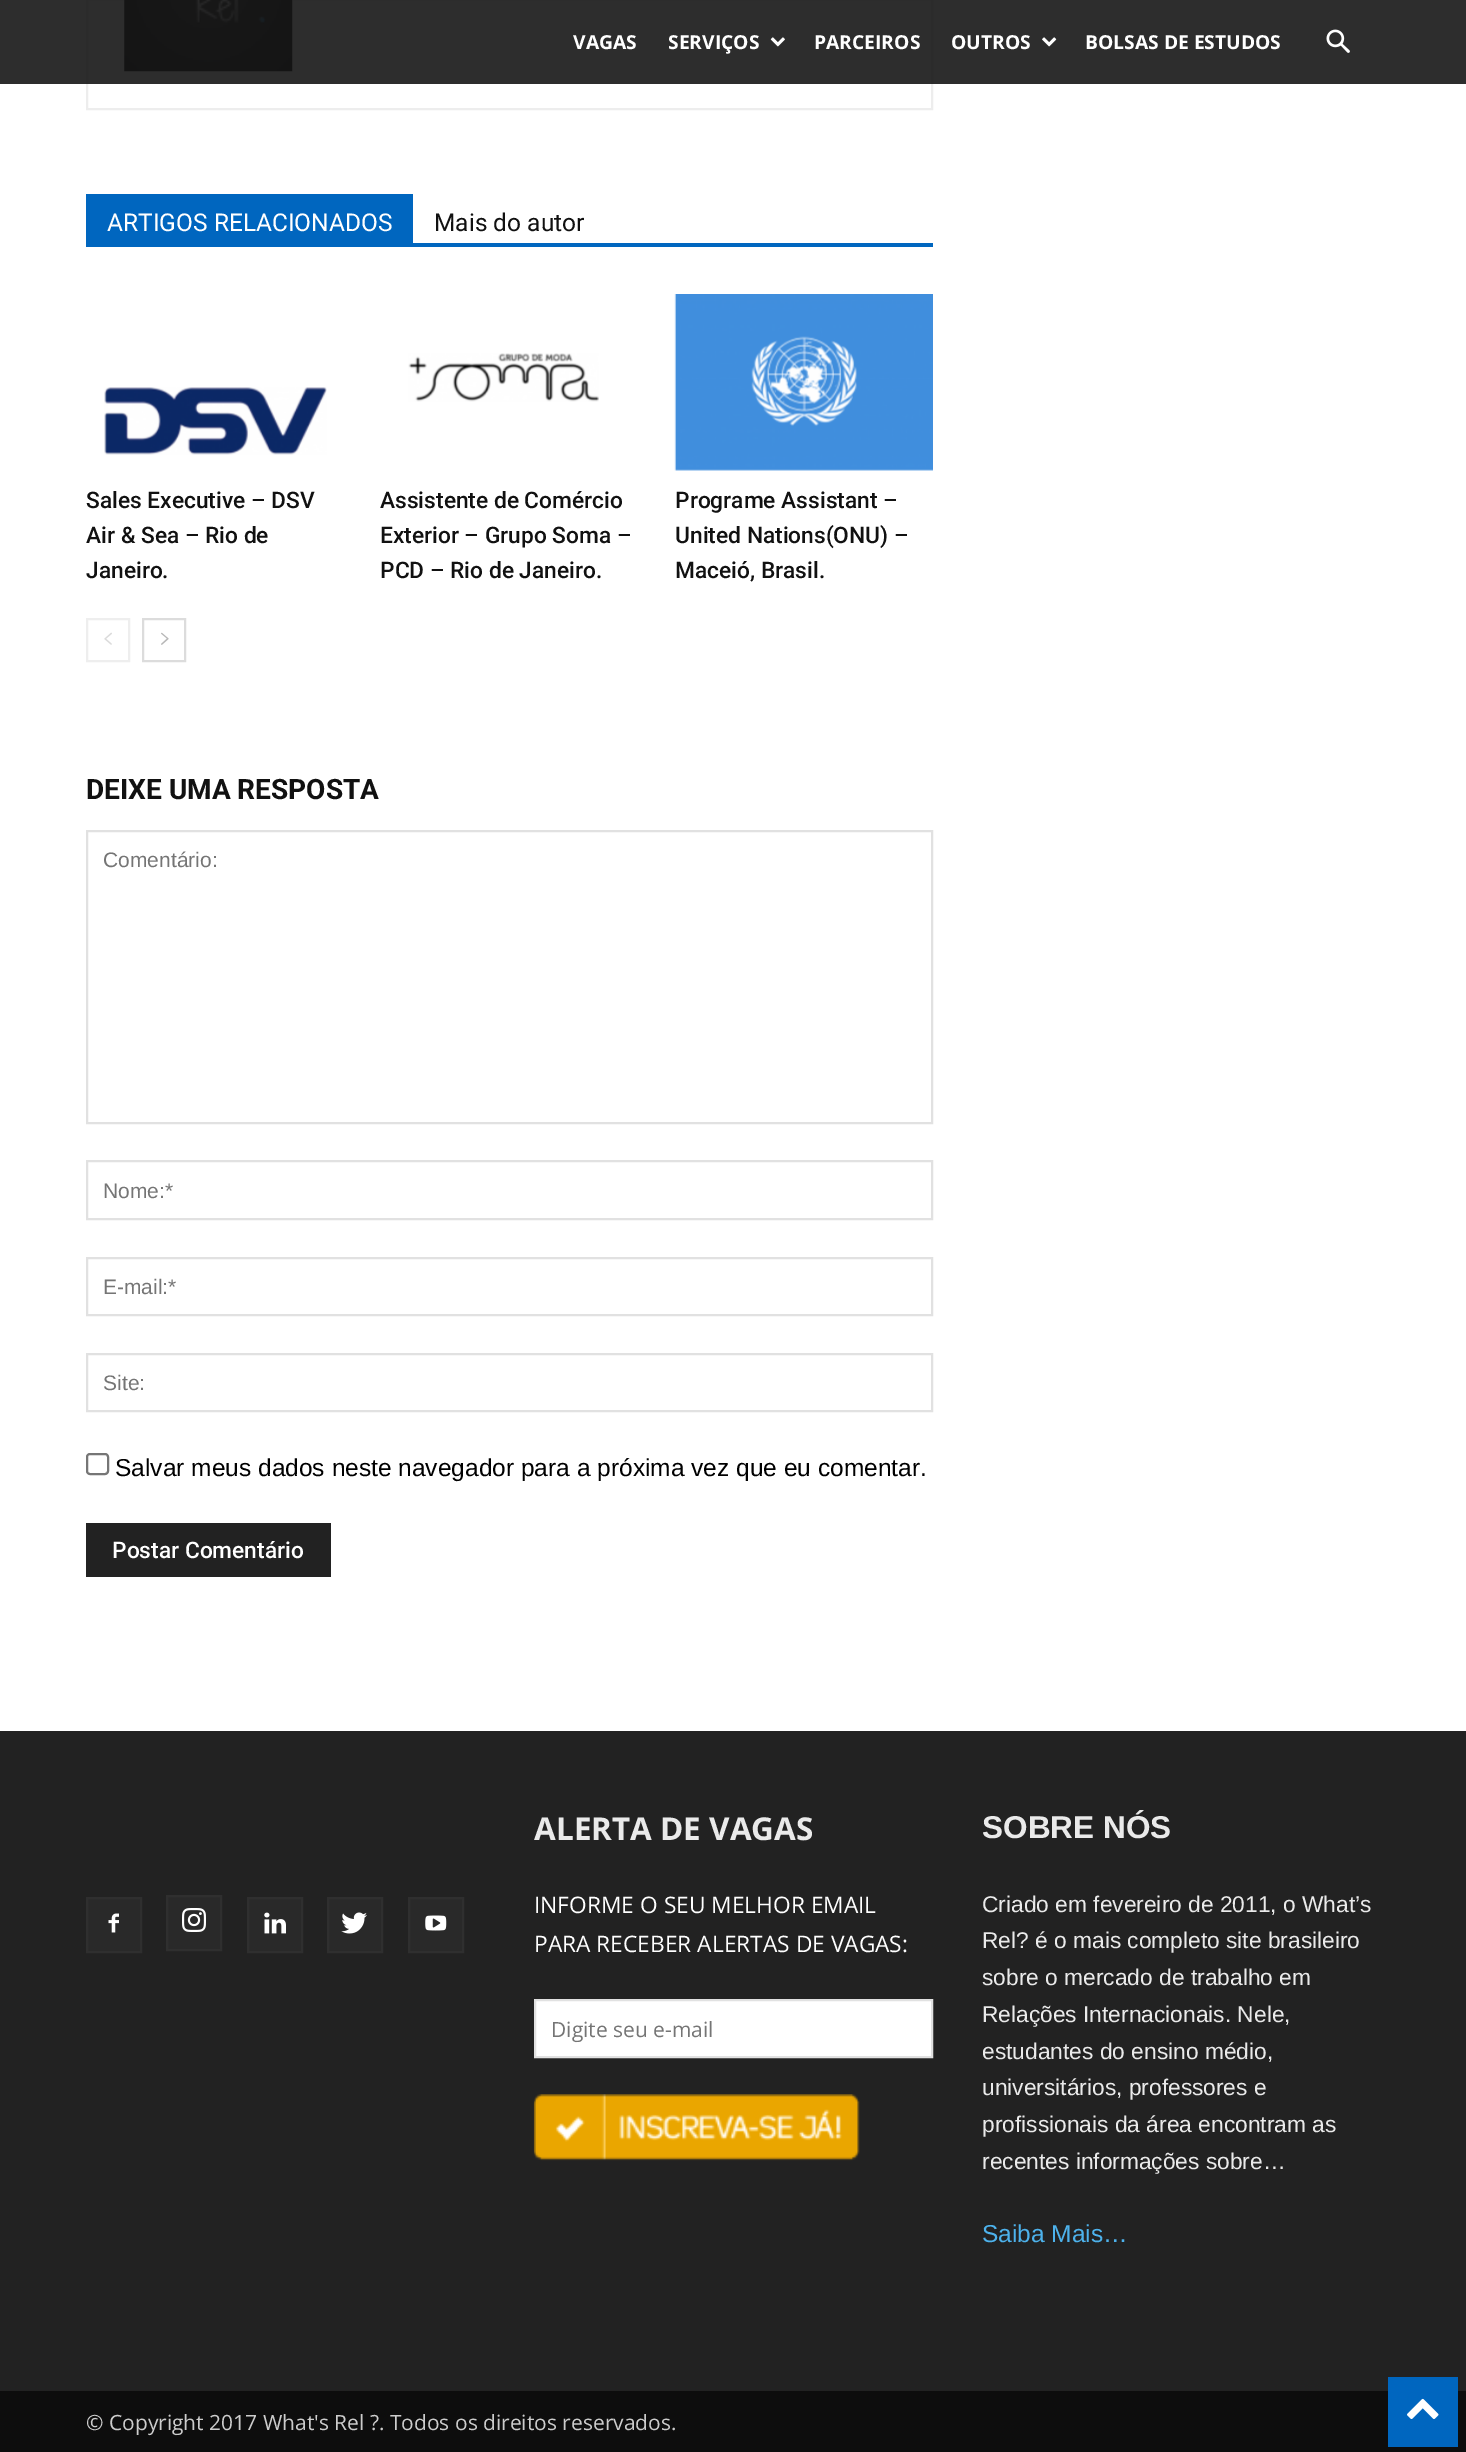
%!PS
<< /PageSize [1466 2452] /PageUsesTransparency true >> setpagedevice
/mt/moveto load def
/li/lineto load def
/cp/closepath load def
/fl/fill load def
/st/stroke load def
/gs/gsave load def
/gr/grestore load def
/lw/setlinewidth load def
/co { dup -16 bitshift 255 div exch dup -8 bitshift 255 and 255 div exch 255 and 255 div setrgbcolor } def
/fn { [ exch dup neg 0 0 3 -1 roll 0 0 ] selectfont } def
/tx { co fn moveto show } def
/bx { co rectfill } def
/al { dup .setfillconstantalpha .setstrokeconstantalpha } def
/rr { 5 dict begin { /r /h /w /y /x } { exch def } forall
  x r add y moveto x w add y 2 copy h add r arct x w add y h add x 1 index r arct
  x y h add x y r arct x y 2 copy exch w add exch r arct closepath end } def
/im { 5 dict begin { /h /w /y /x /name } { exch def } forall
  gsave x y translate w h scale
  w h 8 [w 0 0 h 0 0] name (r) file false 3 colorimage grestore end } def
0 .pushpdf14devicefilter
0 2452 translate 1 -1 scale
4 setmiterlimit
0 0 1466 2452 16#FFFFFF bx
16#EDEDED co
2 lw
87 -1 845 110 rectstroke
(media/4.raw) 124 0 169 72 im
0.9 al
0 0 1466 84 16#161616 bx
1 al
(media/1.raw) 770 37 15 10 im
(media/2.raw) 1042 37 15 10 im
(media/3.raw) 1326 29 24 24 im
86 243 847 4 16#0066BF bx
86 194 327 49 16#0066BF bx
(media/5.raw) 104 387 223 68 im
(media/6.raw) 408 353 191 49 im
(media/7.raw) 674 294 259 177 im
16#EEEEEE co
87 619 42 42 rectstroke
(media/8.raw) 104 632 8 13 im
16#DCDCDC co
143 619 42 42 rectstroke
(media/9.raw) 161 632 8 13 im
16#E1E1E1 co
87 831 845 292 rectstroke
87 1161 845 58 rectstroke
87 1258 845 57 rectstroke
87 1354 845 57 rectstroke
16#767676 co
87 1454 21 20 3 rr st
86 1523 245 54 16#222222 bx
0 1731 1466 660 16#222222 bx
88 1899 52 52 16#292929 bx
(media/10.raw) 108 1913 11 20 im
16#2F2F2F co
87 1898 54 54 rectstroke
168 1897 52 52 16#292929 bx
(media/11.raw) 182 1908 24 24 im
16#2F2F2F co
167 1896 54 54 rectstroke
249 1899 52 52 16#292929 bx
(media/12.raw) 264 1912 22 22 im
16#2F2F2F co
248 1898 54 54 rectstroke
329 1899 52 52 16#292929 bx
(media/13.raw) 341 1912 26 22 im
16#2F2F2F co
328 1898 54 54 rectstroke
410 1899 52 52 16#292929 bx
(media/14.raw) 425 1915 22 16 im
16#2F2F2F co
409 1898 54 54 rectstroke
16#FFFFFF co
535 2000 mt 932 2000 li 932 2057 li 535 2057 li cp gs fl gr
16#E1E1E1 co
st
(media/15.raw) 533 2094 327 67 im
0 2391 1466 61 16#0D0D0D bx
1388 2377 70 70 16#0066BF bx
(media/16.raw) 1407 2398 32 21 im
(VAGAS) 573 49 /OpenSans-Bold 19.25 16#FFFFFF tx
(SERVIÇOS) 668 49 /OpenSans-Bold 19.25 16#FFFFFF tx
(PARCEIROS) 814 49 /OpenSans-Bold 19.25 16#FFFFFF tx
(OUTROS) 951 49 /OpenSans-Bold 19.25 16#FFFFFF tx
(BOLSAS DE ESTUDOS) 1085 49 /OpenSans-Bold 19.25 16#FFFFFF tx
(ARTIGOS RELACIONADOS) 107 231 /Roboto-Regular 24.5 16#FFFFFF tx
(Mais do autor) 434 231 /Roboto-Regular 24.5 16#111111 tx
(Sales Executive – DSV) 86 508 /Roboto-Medium 22.75 16#111111 tx
(Air & Sea – Rio de) 86 543 /Roboto-Medium 22.75 16#111111 tx
(Janeiro.) 86 578 /Roboto-Medium 22.75 16#111111 tx
(Assistente de Comércio) 380 508 /Roboto-Medium 22.75 16#111111 tx
(Exterior – Grupo Soma –) 380 543 /Roboto-Medium 22.75 16#111111 tx
(PCD – Rio de Janeiro.) 380 578 /Roboto-Medium 22.75 16#111111 tx
(Programe Assistant –) 675 508 /Roboto-Medium 22.75 16#111111 tx
(United Nations\(ONU\) –) 675 543 /Roboto-Medium 22.75 16#111111 tx
(Maceió, Brasil.) 675 578 /Roboto-Medium 22.75 16#111111 tx
(DEIXE UMA RESPOSTA) 86 799 /Roboto-Bold 28 16#111111 tx
(Comentário:) 103 867 /LiberationSans-Regular 21 16#757575 tx
(Nome:*) 103 1198 /LiberationSans-Regular 21 16#757575 tx
(E-mail:*) 103 1294 /LiberationSans-Regular 21 16#757575 tx
(Site:) 103 1390 /LiberationSans-Regular 21 16#757575 tx
(Salvar meus dados neste navegador para a próxima vez que eu comentar.) 115 1476 /LiberationSans-Regular 24.5 16#000000 tx
(Postar Comentário) 112 1558 /Roboto-Medium 22.75 16#FFFFFF tx
(ALERTA DE VAGAS) 534 1840 /OpenSans-Bold 31.5 16#EAEAEA tx
(INFORME O SEU MELHOR EMAIL) 534 1913 /OpenSans-Regular 22.75 16#FFFFFF tx
(PARA RECEBER ALERTAS DE VAGAS:) 534 1952 /OpenSans-Regular 22.75 16#FFFFFF tx
(Digite seu e-mail) 551 2037 /OpenSans-Regular 21 16#757575 tx
(SOBRE NÓS) 982 1838 /LiberationSans-Bold 31.5 16#EAEAEA tx
(Criado em fevereiro de 2011, o What’s) 982 1912 /LiberationSans-Regular 22.75 16#EAEAEA tx
(Rel? é o mais completo site brasileiro) 982 1948 /LiberationSans-Regular 22.75 16#EAEAEA tx
(sobre o mercado de trabalho em) 982 1985 /LiberationSans-Regular 22.75 16#EAEAEA tx
(Relações Internacionais. Nele,) 982 2022 /LiberationSans-Regular 22.75 16#EAEAEA tx
(estudantes do ensino médio,) 982 2059 /LiberationSans-Regular 22.75 16#EAEAEA tx
(universitários, professores e) 982 2095 /LiberationSans-Regular 22.75 16#EAEAEA tx
(profissionais da área encontram as) 982 2132 /LiberationSans-Regular 22.75 16#EAEAEA tx
(recentes informações sobre…) 982 2169 /LiberationSans-Regular 22.75 16#EAEAEA tx
(Saiba Mais…) 982 2242 /LiberationSans-Regular 24.5 16#4DB2EC tx
(© Copyright 2017 What's Rel ?. Todos os direitos reservados.) 86 2430 /OpenSans-Regular 21 16#CCCCCC tx
.poppdf14devicefilter showpage
